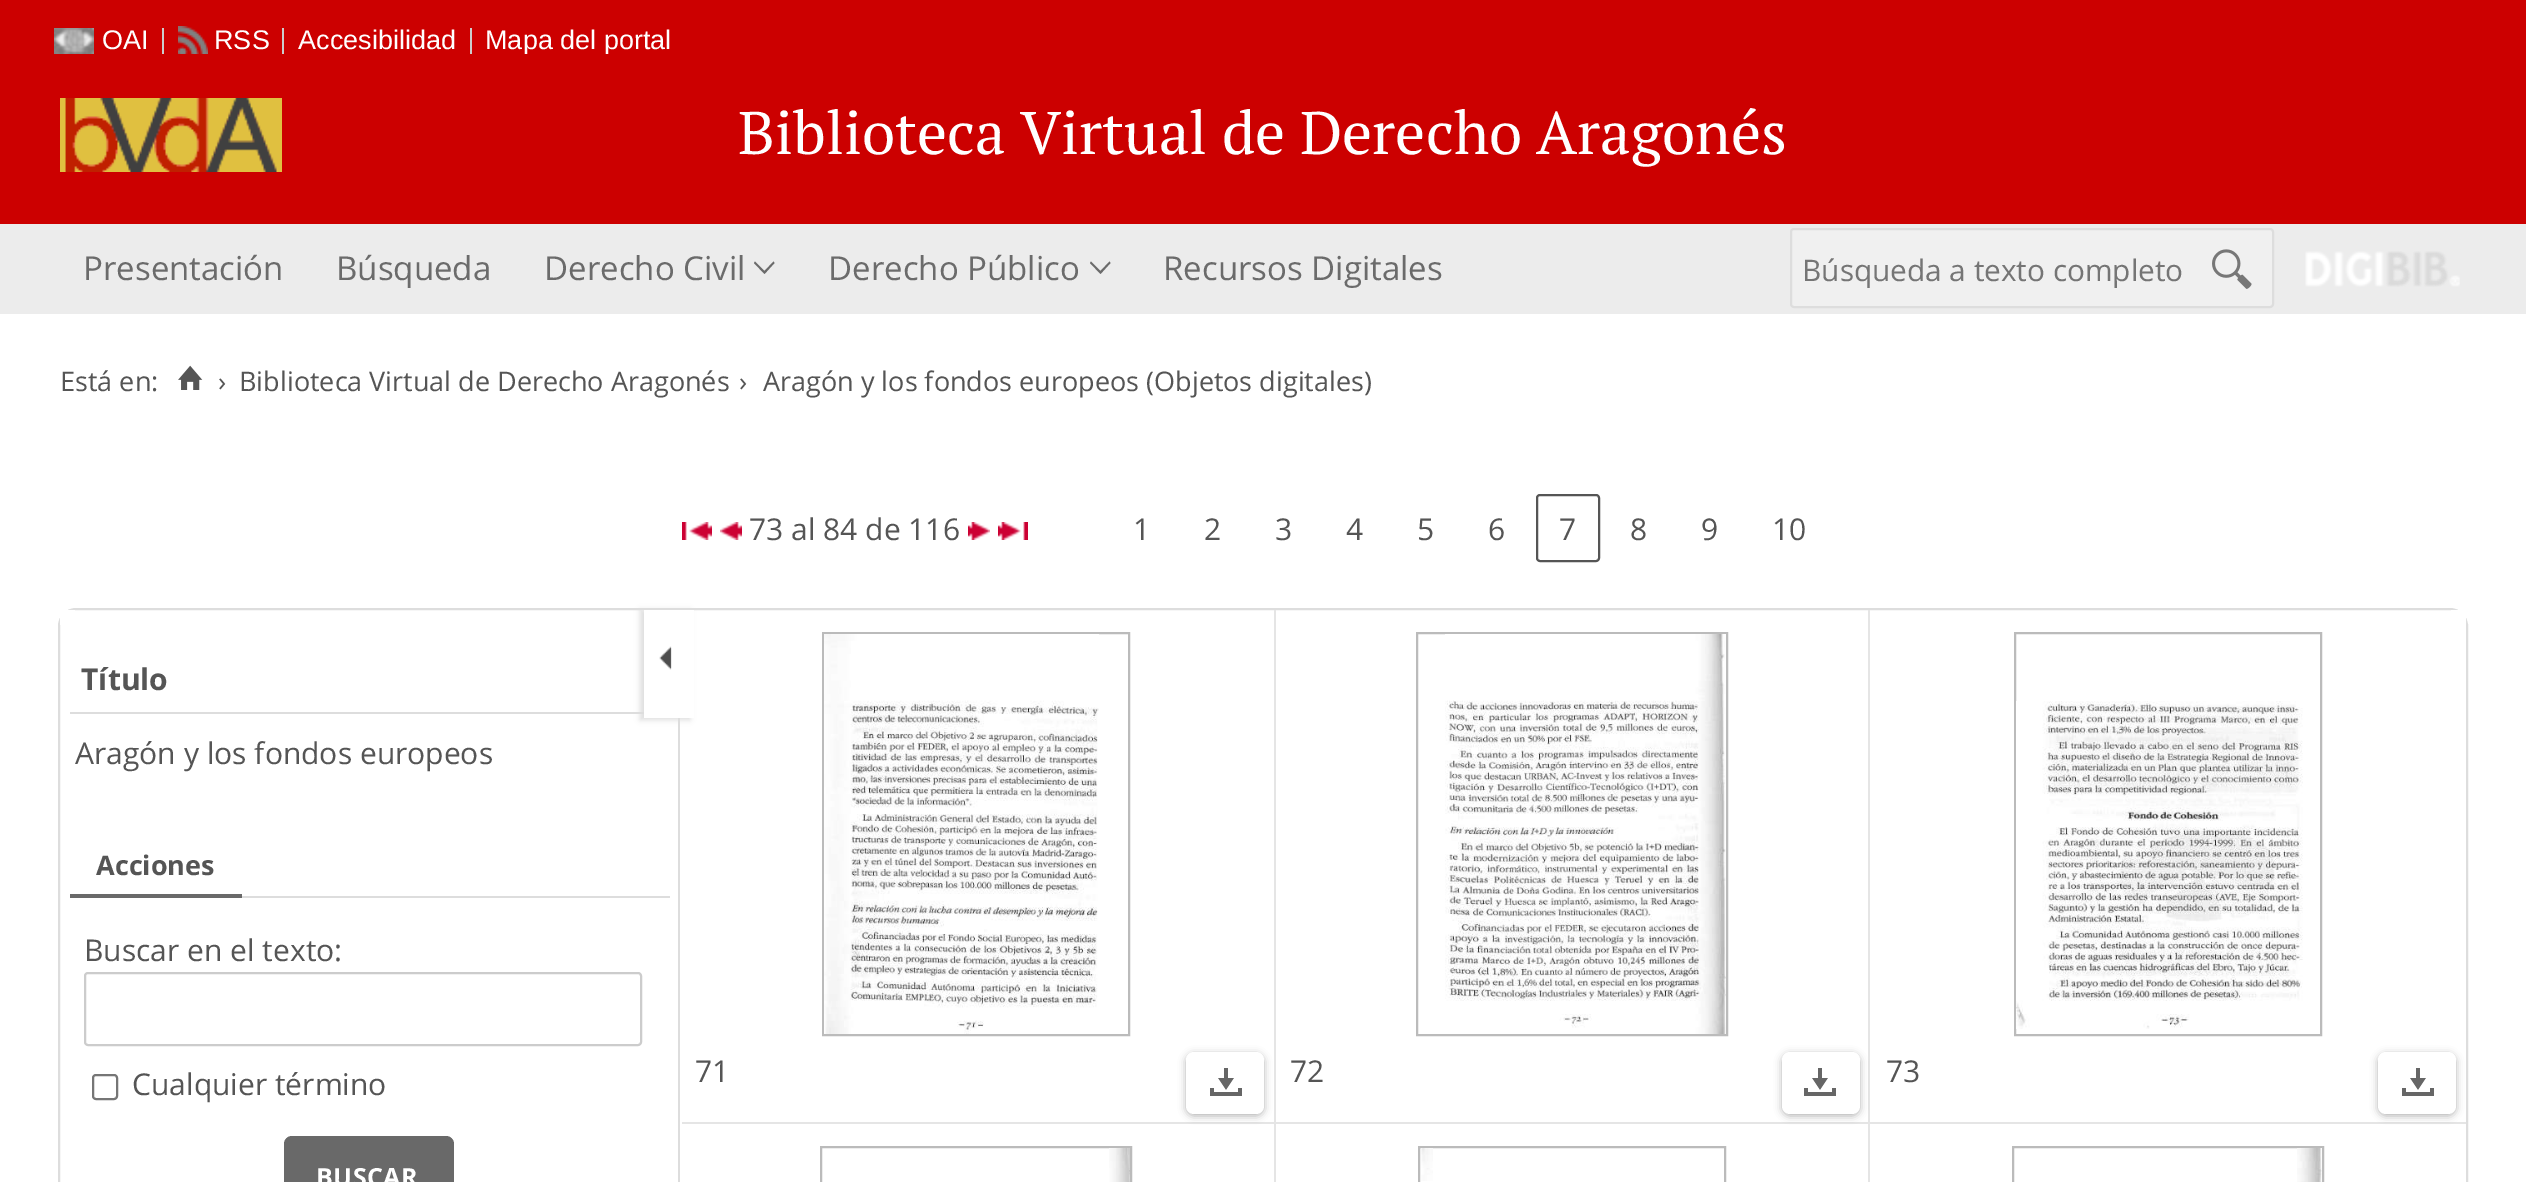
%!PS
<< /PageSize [2526 1182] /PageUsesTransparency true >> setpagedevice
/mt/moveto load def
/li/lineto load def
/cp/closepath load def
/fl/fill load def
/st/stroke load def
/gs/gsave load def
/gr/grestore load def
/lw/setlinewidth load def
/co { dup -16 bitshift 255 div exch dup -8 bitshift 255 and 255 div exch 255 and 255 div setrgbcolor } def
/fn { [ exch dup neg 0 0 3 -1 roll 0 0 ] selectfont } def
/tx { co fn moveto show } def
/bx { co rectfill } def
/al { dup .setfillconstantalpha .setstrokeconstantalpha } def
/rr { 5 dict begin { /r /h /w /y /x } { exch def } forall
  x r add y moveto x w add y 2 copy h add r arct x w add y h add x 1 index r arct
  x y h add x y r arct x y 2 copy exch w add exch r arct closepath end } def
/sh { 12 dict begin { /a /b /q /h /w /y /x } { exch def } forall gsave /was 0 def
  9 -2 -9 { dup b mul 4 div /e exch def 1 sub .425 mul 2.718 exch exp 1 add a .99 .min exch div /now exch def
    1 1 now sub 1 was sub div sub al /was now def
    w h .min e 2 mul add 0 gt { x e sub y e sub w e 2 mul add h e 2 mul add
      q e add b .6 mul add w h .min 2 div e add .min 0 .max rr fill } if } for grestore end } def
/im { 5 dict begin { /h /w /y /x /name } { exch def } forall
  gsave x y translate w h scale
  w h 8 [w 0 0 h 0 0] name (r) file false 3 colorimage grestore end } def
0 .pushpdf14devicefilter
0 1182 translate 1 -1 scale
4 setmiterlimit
0 0 2526 1182 16#FFFFFF bx
0 0 2526 54 16#CC0000 bx
(media/1.raw) 54 28 40 26 im
162 28 2 26 16#CCCCCC bx
(media/2.raw) 178 26 30 28 im
282 28 2 26 16#CCCCCC bx
470 28 2 26 16#CCCCCC bx
0 224 2526 90 16#ECECEC bx
16#6B6B6B co
773.5 261.5 mt 774.5 263 li 764.5 274 li 754 263 li 755 261.5 li 764.5 271 li cp fl
1109.5 261.5 mt 1110.5 263 li 1100.5 274 li 1090 263 li 1091 261.5 li 1100.5 271 li cp fl
16#F0F0F0 co
1791 229 482 78 3 rr gs fl gr
16#DDDDDD co
2 lw
st
(media/4.raw) 2212 249 40 40 im
(media/5.raw) 2305 251 155 36 im
(media/6.raw) 178 365 25 25 im
(media/7.raw) 682 522 30 18 im
(media/8.raw) 720 522 22 18 im
(media/9.raw) 968 522 22 18 im
(media/10.raw) 998 522 30 18 im
16#555555 co
1537 495 62 66 3 rr st
16#DDDDDD co
59 609 2408 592 17 rr st
60 610 15 15 16#FFFFFF bx
678 718 2 464 16#DDDDDD bx
70 712 574 2 16#DDDDDD bx
242 896 428 2 16#DDDDDD bx
70 894 172 4 16#696969 bx
16#CCCCCC co
85 973 556 72 3 rr st
16#767676 co
93 1075 24 24 3 rr st
16#696969 co
284 1136 170 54 8 rr fl
1274 610 2 514 16#E5E5E5 bx
680 1122 596 2 16#E5E5E5 bx
680 1122 2 2 16#FFFFFF bx
16#DDDDDD co
640 610 50 110 0 3 1 sh
644 610 50 108 16#FFFFFF bx
(media/11.raw) 659 646 13 24 im
2451 610 15 15 16#FFFFFF bx
16#BBBBBB co
823 633 306 402 rectstroke
(media/12.raw) 824 634 275 400 im
16#000000 co
1186 1054 78 62 8 4 .3 sh
16#FFFFFF co
1186 1052 78 62 8 rr fl
(media/13.raw) 1210 1068 32 28 im
1868 610 2 514 16#E5E5E5 bx
1276 1122 594 2 16#E5E5E5 bx
16#BBBBBB co
1417 633 310 402 rectstroke
(media/14.raw) 1445 634 281 400 im
16#000000 co
1782 1054 78 62 8 4 .3 sh
16#FFFFFF co
1782 1052 78 62 8 rr fl
(media/13.raw) 1804 1068 32 28 im
1870 1122 596 2 16#E5E5E5 bx
16#BBBBBB co
2015 633 306 402 rectstroke
(media/15.raw) 2016 701 287 328 im
16#000000 co
2378 1054 78 62 8 4 .3 sh
16#FFFFFF co
2378 1052 78 62 8 rr fl
(media/13.raw) 2402 1068 32 28 im
1274 1124 2 58 16#E5E5E5 bx
16#BBBBBB co
821 1147 310 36 rectstroke
(media/16.raw) 1109 1148 21 34 im
1868 1124 2 58 16#E5E5E5 bx
16#BBBBBB co
1419 1147 306 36 rectstroke
(media/17.raw) 1421 1148 12 33 im
2013 1147 310 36 rectstroke
(media/18.raw) 2297 1148 25 34 im
(OAI) 102 49 /LiberationSans-Regular 27 16#FFFFFF tx
(RSS) 214 49 /LiberationSans-Regular 27 16#FFFFFF tx
(Accesibilidad) 298 49 /LiberationSans-Regular 27 16#FFFFFF tx
(Mapa del portal) 485 49 /LiberationSans-Regular 27 16#FFFFFF tx
0 54 2526 170 16#CC0000 bx
(media/3.raw) 60 98 222 74 im
(Biblioteca Virtual de Derecho Aragonés) 738 154 /PTSerif-Regular 60 16#FFFFFF tx
(Presentación) 83 280 /OpenSans-Regular 33 16#6B6B6B tx
(Búsqueda) 336 280 /OpenSans-Regular 33 16#6B6B6B tx
(Derecho Civil) 544 280 /OpenSans-Regular 33 16#6B6B6B tx
(Derecho Público) 828 280 /OpenSans-Regular 33 16#6B6B6B tx
(Recursos Digitales) 1163 280 /OpenSans-Regular 33 16#6B6B6B tx
gs
1802 248 380 40 rectclip
(Búsqueda a texto completo) 1802 281 /OpenSans-Regular 29.75 16#757575 tx
gr
(Está en:) 60 391 /OpenSans-Regular 27 16#555555 tx
(›) 218 391 /OpenSans-Regular 27 16#555555 tx
(Biblioteca Virtual de Derecho Aragonés) 239 391 /OpenSans-Regular 27 16#555555 tx
(›) 739 391 /OpenSans-Regular 27 16#555555 tx
(Aragón y los fondos europeos \(Objetos digitales\)) 763 391 /OpenSans-Regular 27 16#555555 tx
(73 al 84 de 116) 749 540 /OpenSans-Regular 30 16#555555 tx
(1) 1133 540 /OpenSans-Regular 30 16#555555 tx
(2) 1204 540 /OpenSans-Regular 30 16#555555 tx
(3) 1275 540 /OpenSans-Regular 30 16#555555 tx
(4) 1346 540 /OpenSans-Regular 30 16#555555 tx
(5) 1417 540 /OpenSans-Regular 30 16#555555 tx
(6) 1488 540 /OpenSans-Regular 30 16#555555 tx
(7) 1559 540 /OpenSans-Regular 30 16#555555 tx
(8) 1630 540 /OpenSans-Regular 30 16#555555 tx
(9) 1701 540 /OpenSans-Regular 30 16#555555 tx
(10) 1772 540 /OpenSans-Regular 30 16#555555 tx
(Título) 81 690 /OpenSans-Bold 30 16#555555 tx
(Aragón y los fondos europeos) 75 764 /OpenSans-Regular 30 16#555555 tx
(Acciones) 96 875 /OpenSans-Bold 27 16#555555 tx
(Buscar en el texto:) 84 961 /OpenSans-Regular 30 16#555555 tx
(Cualquier término) 132 1095 /OpenSans-Regular 30 16#555555 tx
/OpenSans-Bold 25 fn
16#FFFFFF co
316 1186 mt .5 0 (BUSCAR) ashow
(71) 695 1082 /OpenSans-Regular 30 16#555555 tx
(72) 1290 1082 /OpenSans-Regular 30 16#555555 tx
(73) 1886 1082 /OpenSans-Regular 30 16#555555 tx
.poppdf14devicefilter showpage
